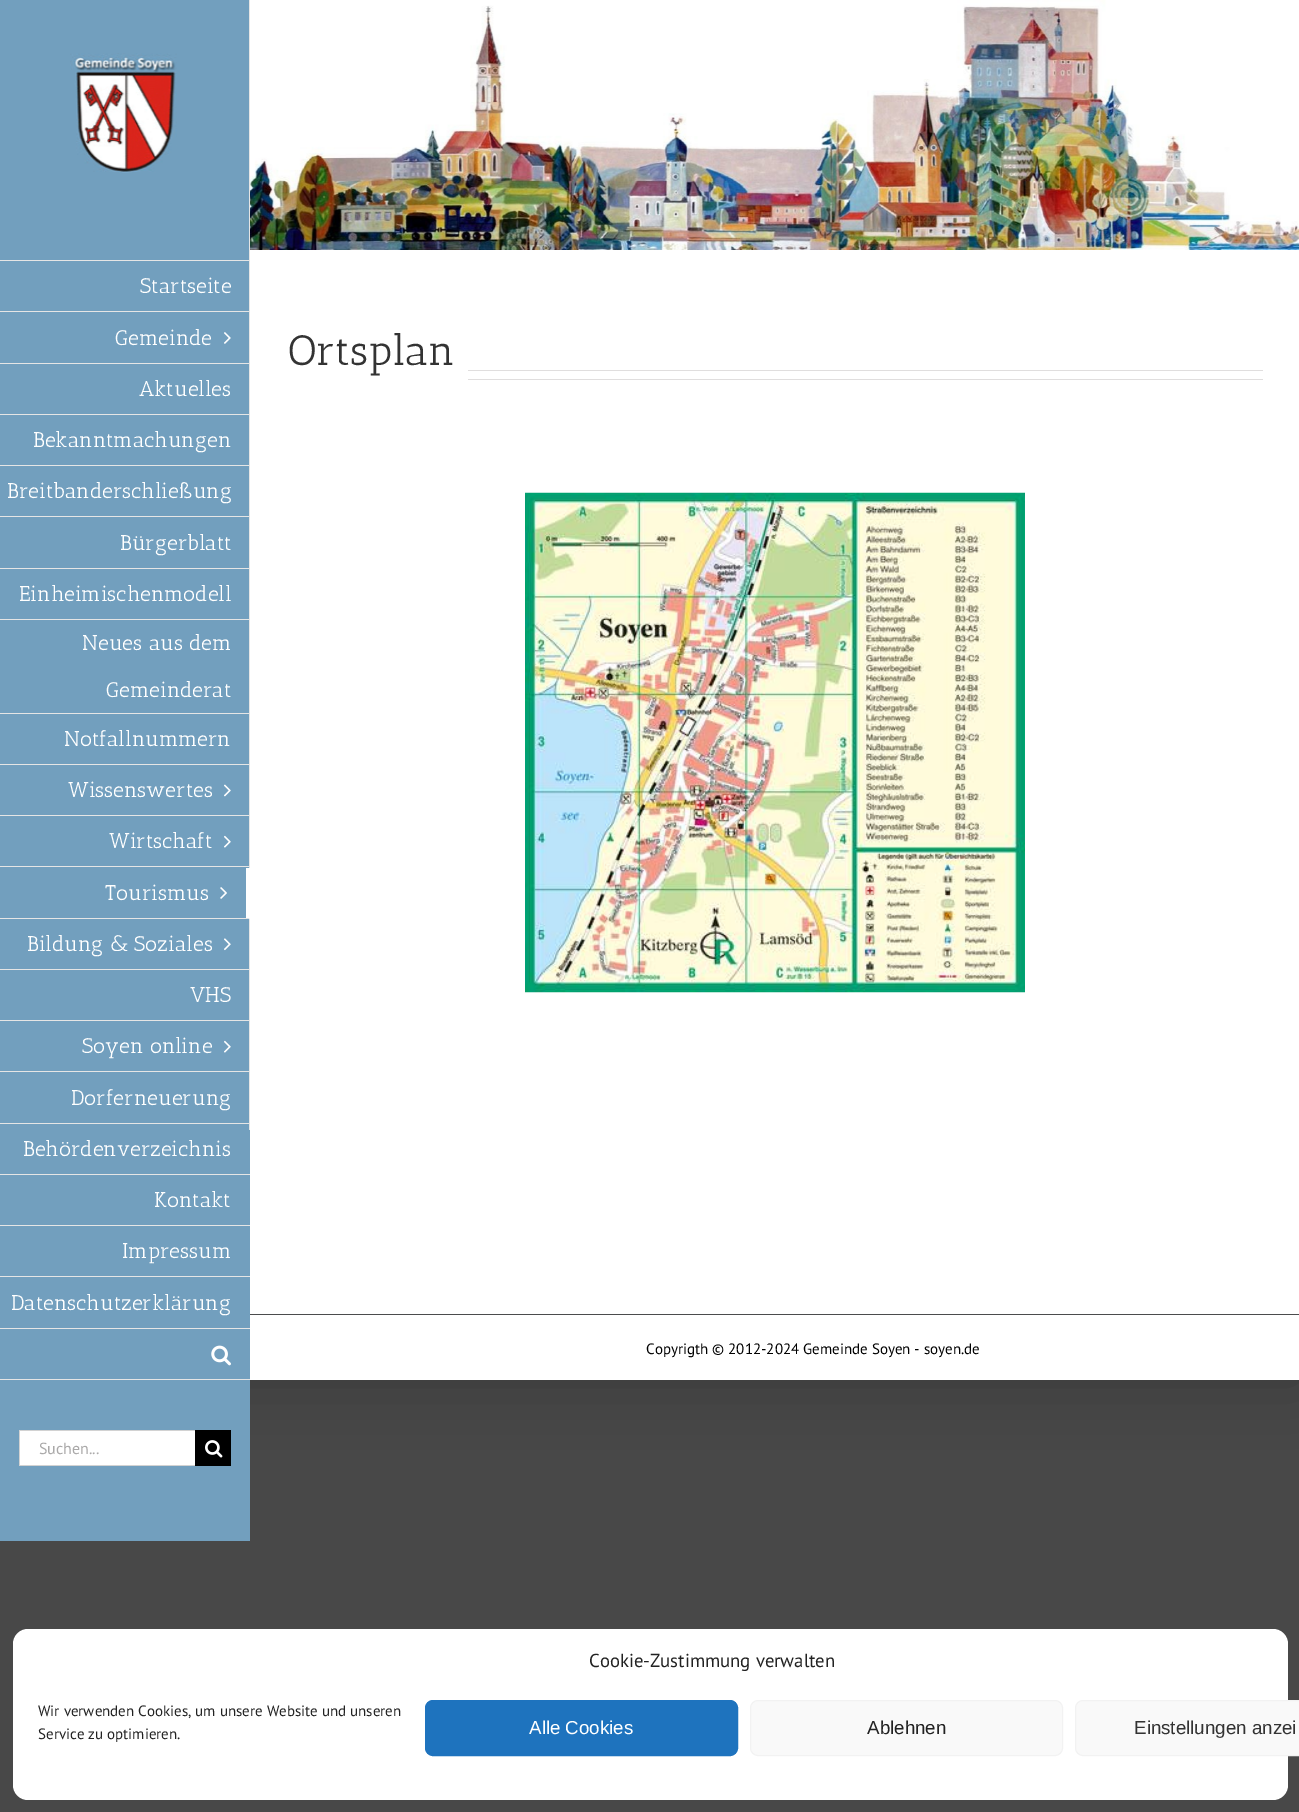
%!PS
<< /PageSize [1299 1812] /PageUsesTransparency true >> setpagedevice
/mt/moveto load def
/li/lineto load def
/cp/closepath load def
/fl/fill load def
/st/stroke load def
/gs/gsave load def
/gr/grestore load def
/co { dup -16 bitshift 255 div exch dup -8 bitshift 255 and 255 div exch 255 and 255 div setrgbcolor } def
/fn { [ exch dup neg 0 0 3 -1 roll 0 0 ] selectfont } def
/tx { co fn moveto show } def
/bx { co rectfill } def
/al { dup .setfillconstantalpha .setstrokeconstantalpha } def
/rr { 5 dict begin { /r /h /w /y /x } { exch def } forall
  x r add y moveto x w add y 2 copy h add r arct x w add y h add x 1 index r arct
  x y h add x y r arct x y 2 copy exch w add exch r arct closepath end } def
/sh { 12 dict begin { /a /b /q /h /w /y /x } { exch def } forall gsave /was 0 def
  9 -2 -9 { dup b mul 4 div /e exch def 1 sub .425 mul 2.718 exch exp 1 add a .99 .min exch div /now exch def
    1 1 now sub 1 was sub div sub al /was now def
    w h .min e 2 mul add 0 gt { x e sub y e sub w e 2 mul add h e 2 mul add
      q e add b .6 mul add w h .min 2 div e add .min 0 .max rr fill } if } for grestore end } def
/im { 5 dict begin { /h /w /y /x /name } { exch def } forall
  gsave x y translate w h scale
  w h 8 [w 0 0 h 0 0] name (r) file false 3 colorimage grestore end } def
0 .pushpdf14devicefilter
0 1812 translate 1 -1 scale
4 setmiterlimit
0 0 1299 1812 16#484848 bx
16#000000 co
-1 -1 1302 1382 0 31 .22 sh
(media/1.raw) 250 0 1049 250 im
0 0 250 1541 16#729FBE bx
(media/2.raw) 70 53 107 120 im
249 0 1 1130 16#E5E5E5 bx
0 260 250 1 16#E5E5E5 bx
0 311 250 1 16#E5E5E5 bx
0 363 250 1 16#E5E5E5 bx
(media/3.raw) 224 332 7 12 im
0 414 250 1 16#E5E5E5 bx
0 465 250 1 16#E5E5E5 bx
0 516 250 1 16#E5E5E5 bx
0 568 250 1 16#E5E5E5 bx
0 619 250 1 16#E5E5E5 bx
0 713 250 1 16#E5E5E5 bx
0 764 250 1 16#E5E5E5 bx
0 815 250 1 16#E5E5E5 bx
(media/4.raw) 224 784 7 13 im
0 866 250 1 16#E5E5E5 bx
(media/5.raw) 224 835 7 13 im
16#FFFFFF co
250 868 mt 250 919 li 246 918 li 246 868 li cp fl
16#E5E5E5 co
250 919 mt 0 919 li 0 918 li 246 918 li cp fl
(media/6.raw) 220 887 7 12 im
0 969 250 1 16#E5E5E5 bx
(media/7.raw) 224 938 7 13 im
0 1020 250 1 16#E5E5E5 bx
0 1071 250 1 16#E5E5E5 bx
(media/5.raw) 224 1040 7 13 im
0 1123 250 1 16#E5E5E5 bx
0 1174 250 1 16#E5E5E5 bx
0 1225 250 1 16#E5E5E5 bx
0 1276 250 1 16#E5E5E5 bx
0 1328 250 1 16#E5E5E5 bx
0 1379 250 1 16#E5E5E5 bx
(media/8.raw) 211 1345 20 21 im
20 1431 175 34 16#FFFFFF bx
19 1430 176 1 16#D2D2D2 bx
19 1465 176 1 16#D2D2D2 bx
19 1430 1 36 16#D2D2D2 bx
195 1430 36 36 16#000000 bx
(media/9.raw) 205 1440 18 18 im
250 250 1049 1064 16#FFFFFF bx
468 370 795 1 16#E0DEDE bx
468 379 795 1 16#E0DEDE bx
(media/10.raw) 525 492 500 501 im
250 1315 1049 65 16#FFFFFF bx
250 1314 1049 1 16#4B4C4D bx
16#FFFFFF co
13 1629 1275 171 15 rr fl
16#1E73BE co
425.5 1700.5 312 55 7.5 rr gs fl gr
st
16#F9F9F9 co
750.5 1700.5 312 55 7.5 rr gs fl gr
16#F2F2F2 co
st
16#F9F9F9 co
1075.5 1700.5 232 55 7.5 rr gs fl gr
16#F2F2F2 co
st
(Startseite) 140 293 /AnticSlab-Regular 21.25 16#FFFFFF tx
(Gemeinde) 115 345 /AnticSlab-Regular 21.25 16#FFFFFF tx
(Aktuelles) 139 396 /AnticSlab-Regular 21.25 16#FFFFFF tx
(Bekanntmachungen) 33 447 /AnticSlab-Regular 21.25 16#FFFFFF tx
(Breitbanderschließung) 7 498 /AnticSlab-Regular 21.25 16#FFFFFF tx
(Bürgerblatt) 120 550 /AnticSlab-Regular 21.25 16#FFFFFF tx
(Einheimischenmodell) 19 601 /AnticSlab-Regular 21.25 16#FFFFFF tx
(Neues aus dem) 82 650 /AnticSlab-Regular 21.25 16#FFFFFF tx
(Gemeinderat) 106 697 /AnticSlab-Regular 21.25 16#FFFFFF tx
(Notfallnummern) 64 746 /AnticSlab-Regular 21.25 16#FFFFFF tx
(Wissenswertes) 68 797 /AnticSlab-Regular 21.25 16#FFFFFF tx
(Wirtschaft) 109 848 /AnticSlab-Regular 21.25 16#FFFFFF tx
(Tourismus) 105 900 /AnticSlab-Regular 21.25 16#FFFFFF tx
(Bildung & Soziales) 27 951 /AnticSlab-Regular 21.25 16#FFFFFF tx
(VHS) 190 1002 /AnticSlab-Regular 21.25 16#FFFFFF tx
(Soyen online) 82 1053 /AnticSlab-Regular 21.25 16#FFFFFF tx
(Dorferneuerung) 71 1105 /AnticSlab-Regular 21.25 16#FFFFFF tx
(Behördenverzeichnis) 23 1156 /AnticSlab-Regular 21.25 16#FFFFFF tx
(Kontakt) 154 1207 /AnticSlab-Regular 21.25 16#FFFFFF tx
(Impressum) 122 1258 /AnticSlab-Regular 21.25 16#FFFFFF tx
(Datenschutzerklärung) 11 1310 /AnticSlab-Regular 21.25 16#FFFFFF tx
(Suchen...) 39 1454 /PTSans-Regular 16 16#AAA9A9 tx
(Ortsplan) 288 365 /AnticSlab-Regular 42.5 16#333333 tx
(Copyrigth © 2012-2024 Gemeinde Soyen - soyen.de) 646 1354 /PTSans-Regular 15 16#000000 tx
(Cookie-Zustimmung verwalten) 589 1667 /PTSans-Regular 18.75 16#222222 tx
(Wir verwenden Cookies, um unsere Website und unseren) 38 1716 /PTSans-Regular 15 16#222222 tx
(Service zu optimieren.) 38 1739 /PTSans-Regular 15 16#222222 tx
(Alle Cookies) 529 1734 /LiberationSans-Regular 18.75 16#FFFFFF tx
(Ablehnen) 867 1734 /LiberationSans-Regular 18.75 16#222222 tx
(Einstellungen anzei) 1134 1734 /LiberationSans-Regular 18.75 16#333333 tx
.poppdf14devicefilter showpage
